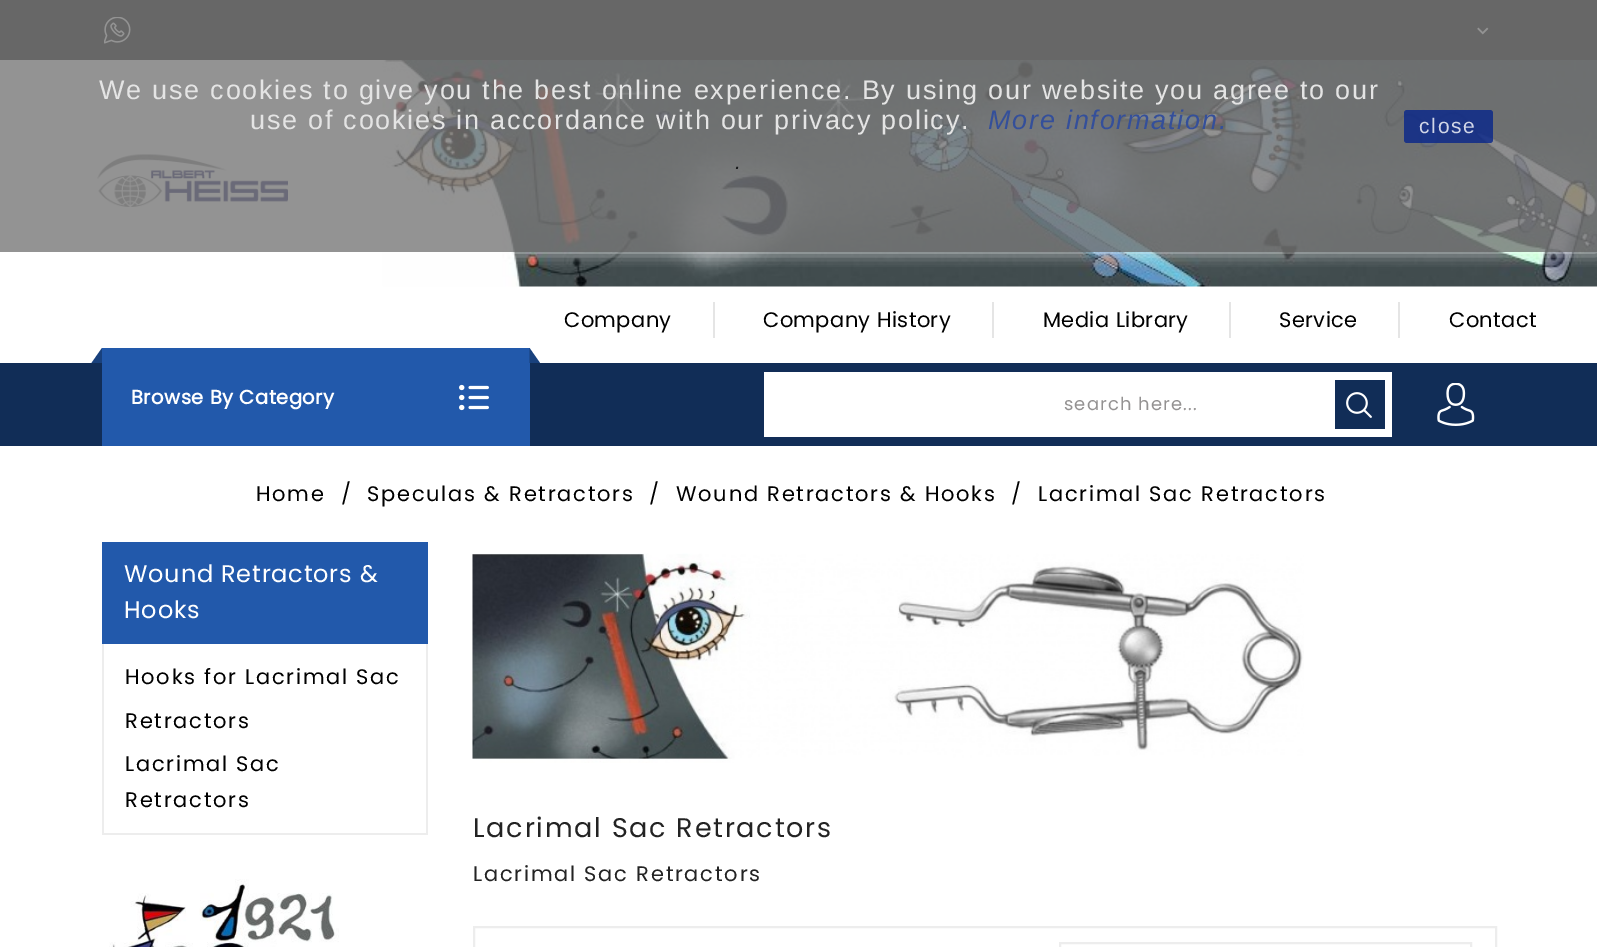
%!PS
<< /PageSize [1597 947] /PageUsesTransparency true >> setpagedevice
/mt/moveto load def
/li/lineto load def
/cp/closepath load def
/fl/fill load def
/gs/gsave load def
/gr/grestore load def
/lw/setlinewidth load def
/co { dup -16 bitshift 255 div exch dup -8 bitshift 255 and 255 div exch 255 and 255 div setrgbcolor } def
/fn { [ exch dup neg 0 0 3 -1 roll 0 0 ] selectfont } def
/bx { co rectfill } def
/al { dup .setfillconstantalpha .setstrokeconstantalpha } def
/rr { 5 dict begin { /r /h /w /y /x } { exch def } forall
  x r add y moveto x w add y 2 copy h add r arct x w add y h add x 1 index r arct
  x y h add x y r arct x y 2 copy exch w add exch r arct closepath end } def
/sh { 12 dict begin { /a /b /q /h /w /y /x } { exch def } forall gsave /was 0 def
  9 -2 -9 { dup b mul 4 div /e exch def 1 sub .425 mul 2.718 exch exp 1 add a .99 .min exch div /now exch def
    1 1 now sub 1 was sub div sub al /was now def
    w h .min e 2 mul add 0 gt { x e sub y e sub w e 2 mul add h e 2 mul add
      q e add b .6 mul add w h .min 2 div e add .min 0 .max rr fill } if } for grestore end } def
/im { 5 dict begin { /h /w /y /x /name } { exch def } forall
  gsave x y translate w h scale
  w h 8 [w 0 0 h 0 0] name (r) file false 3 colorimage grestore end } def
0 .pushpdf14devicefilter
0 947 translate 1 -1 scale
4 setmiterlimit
0 0 1597 947 16#FFFFFF bx
0 0 1597 60 16#222222 bx
(media/1.raw) 104 17 27 27 im
(media/2.raw) 1477 27 12 8 im
(media/3.raw) 97 154 191 53 im
(media/4.raw) 382 60 1215 227 im
gs
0 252 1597 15 rectclip
16#FFFFFF co
0 0 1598 252 0 7.5 .8 sh
gr
0.8 al
0 0 1597 252 16#787878 bx
16#07258A co
1404 110 89 33 3 rr fl
1 al
713 302 2 36 16#E5E5E5 bx
992 302 2 36 16#E5E5E5 bx
1229 302 2 36 16#E5E5E5 bx
1398 302 2 36 16#E5E5E5 bx
0 363 1597 83 16#112D57 bx
16#19417D co
102 363 mt 91.5 363 li 102 348 li cp fl
102 348 428 98 16#2259AB bx
16#19417D co
529.5 363 mt 529.5 348 li 540 363 li cp fl
(media/5.raw) 459 384 30 27 im
764 372 628 65 16#FFFFFF bx
1335 380 50 49 16#112D57 bx
(media/6.raw) 1346 392 26 26 im
(media/7.raw) 1437 383 38 43 im
102 542 326 102 16#2259AB bx
426 644 2 190 16#EDEDED bx
102 833 326 2 16#EDEDED bx
102 644 2 190 16#EDEDED bx
(media/8.raw) 109 879 230 68 im
(media/9.raw) 472 553 832 210 im
2 lw
474 927 1022 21 rectstroke
1060 943 411 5 rectstroke
/LiberationSans-Regular 27 fn
16#E4E4E4 co
99 99 mt 1.75 0 (We use cookies to give you the best online experience. By using our website you agree to our) ashow
250 129 mt 1.75 0 (use of cookies in accordance with our privacy policy.) ashow
/LiberationSans-Italic 27 fn
16#344F9A co
988 129 mt 1.75 0 (More information.) ashow
/LiberationSans-Italic 21 fn
16#161819 co
735 169 mt 1.75 0 (.) ashow
/LiberationSans-Regular 21 fn
16#D1D6E7 co
1419 133 mt 1.75 0 (close) ashow
/Poppins-Regular 21 fn
16#000000 co
564 327 mt .4 0 (Company) ashow
763 327 mt .4 0 (Company History) ashow
1043 327 mt .4 0 (Media Library) ashow
1279 327 mt .4 0 (Service) ashow
1449 327 mt .4 0 (Contact) ashow
/Poppins-Bold 19.5 fn
16#FFFFFF co
131 404 mt .5 0 (Browse By Category) ashow
/Poppins-Regular 18 fn
16#949292 co
1064 410 mt 1.1 0 (search here...) ashow
/Poppins-Regular 21 fn
16#000000 co
256 501 mt 1.75 0 (Home) ashow
341 501 mt 1.75 0 (/) ashow
367 501 mt 1.75 0 (Speculas & Retractors) ashow
649 501 mt 1.75 0 (/) ashow
676 501 mt 1.75 0 (Wound Retractors & Hooks) ashow
1011 501 mt 1.75 0 (/) ashow
1038 501 mt 1.75 0 (Lacrimal Sac Retractors) ashow
/Poppins-Regular 24 fn
16#FFFFFF co
124 582 mt .8 0 (Wound Retractors &) ashow
124 618 mt .8 0 (Hooks) ashow
/Poppins-Regular 21 fn
16#000000 co
125 684 mt 1.75 0 (Hooks for Lacrimal Sac) ashow
125 728 mt 1.75 0 (Retractors) ashow
125 771 mt 1.75 0 (Lacrimal Sac) ashow
125 807 mt 1.75 0 (Retractors) ashow
/Poppins-Regular 27 fn
16#232323 co
473 837 mt 1.75 0 (Lacrimal Sac Retractors) ashow
/Poppins-Regular 21 fn
473 881 mt 1.75 0 (Lacrimal Sac Retractors) ashow
.poppdf14devicefilter showpage
